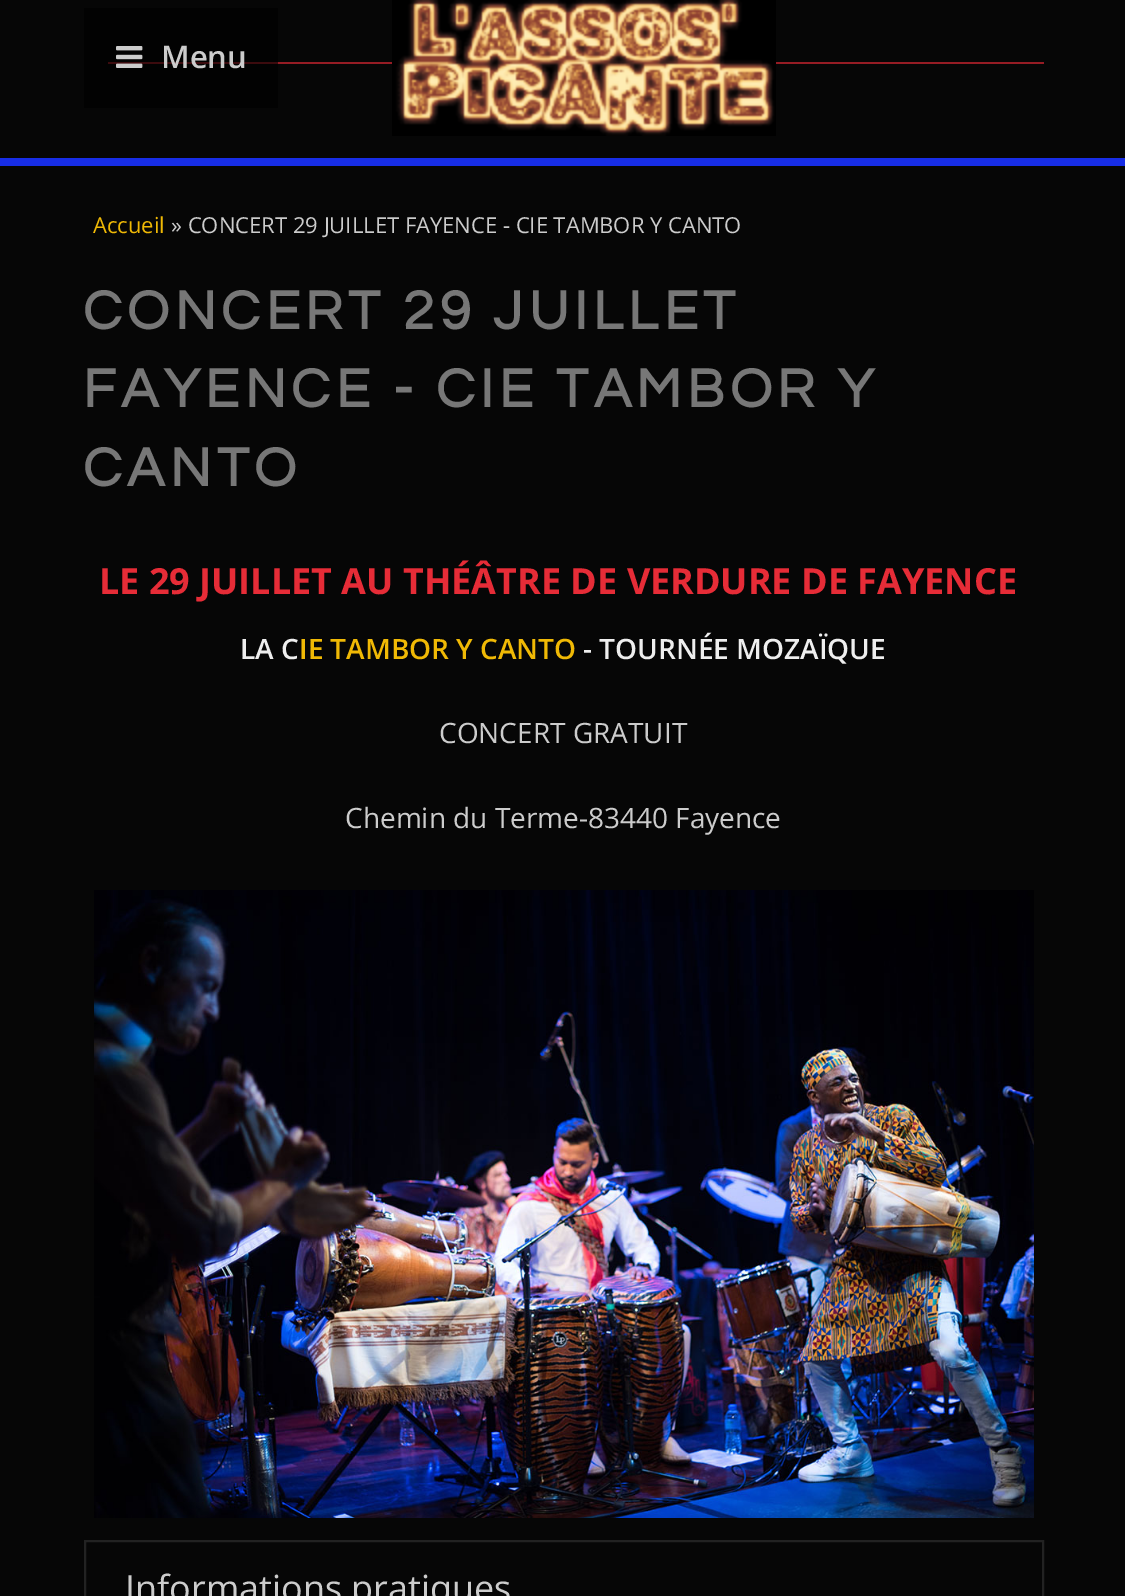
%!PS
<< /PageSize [1125 1596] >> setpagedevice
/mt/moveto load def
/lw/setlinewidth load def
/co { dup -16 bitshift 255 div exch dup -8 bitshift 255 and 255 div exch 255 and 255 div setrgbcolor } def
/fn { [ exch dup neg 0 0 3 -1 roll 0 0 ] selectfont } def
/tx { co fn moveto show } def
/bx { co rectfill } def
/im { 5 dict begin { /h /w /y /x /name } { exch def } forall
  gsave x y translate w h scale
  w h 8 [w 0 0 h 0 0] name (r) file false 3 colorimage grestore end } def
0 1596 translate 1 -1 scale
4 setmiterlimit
0 0 1125 1596 16#060606 bx
84 8 194 100 16#020202 bx
0 158 1125 8 16#172DE6 bx
278 62 766 2 16#961C24 bx
108 62 170 2 16#3C0B0E bx
(media/1.raw) 116 46 27 22 im
(media/2.raw) 392 0 384 136 im
(media/3.raw) 94 890 940 628 im
16#222222 co
2 lw
85 1541 958 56 rectstroke
(Menu) 161 68 /OpenSans-SemiBold 31 16#CCCCCC tx
(Accueil) 93 233 /OpenSans-Regular 22 16#F0B905 tx
(» CONCERT 29 JUILLET FAYENCE - CIE TAMBOR Y CANTO) 171 233 /OpenSans-Regular 22 16#CCCCCC tx
/Questrial-Bold 56 fn
16#777777 co
83 329 mt 5.6 0 (CONCERT 29 JUILLET) ashow
83 407 mt 5.6 0 (FAYENCE - CIE TAMBOR Y) ashow
83 486 mt 5.6 0 (CANTO) ashow
(LE 29 JUILLET AU THÉÂTRE DE VERDURE DE FAYENCE) 99 594 /OpenSans-Bold 36 16#E62C37 tx
(LA C) 240 659 /OpenSans-SemiBold 28 16#EEEEEE tx
(IE TAMBOR Y CANTO) 299 659 /OpenSans-SemiBold 28 16#F0B905 tx
(- TOURNÉE MOZAÏQUE) 583 659 /OpenSans-SemiBold 28 16#EEEEEE tx
(CONCERT GRATUIT) 439 743 /OpenSans-Regular 28 16#CCCCCC tx
(Chemin du Terme-83440 Fayence) 345 828 /OpenSans-Regular 28 16#CCCCCC tx
(Informations pratiques) 125 1601 /OpenSans-Regular 36 16#CCCCCC tx
showpage
